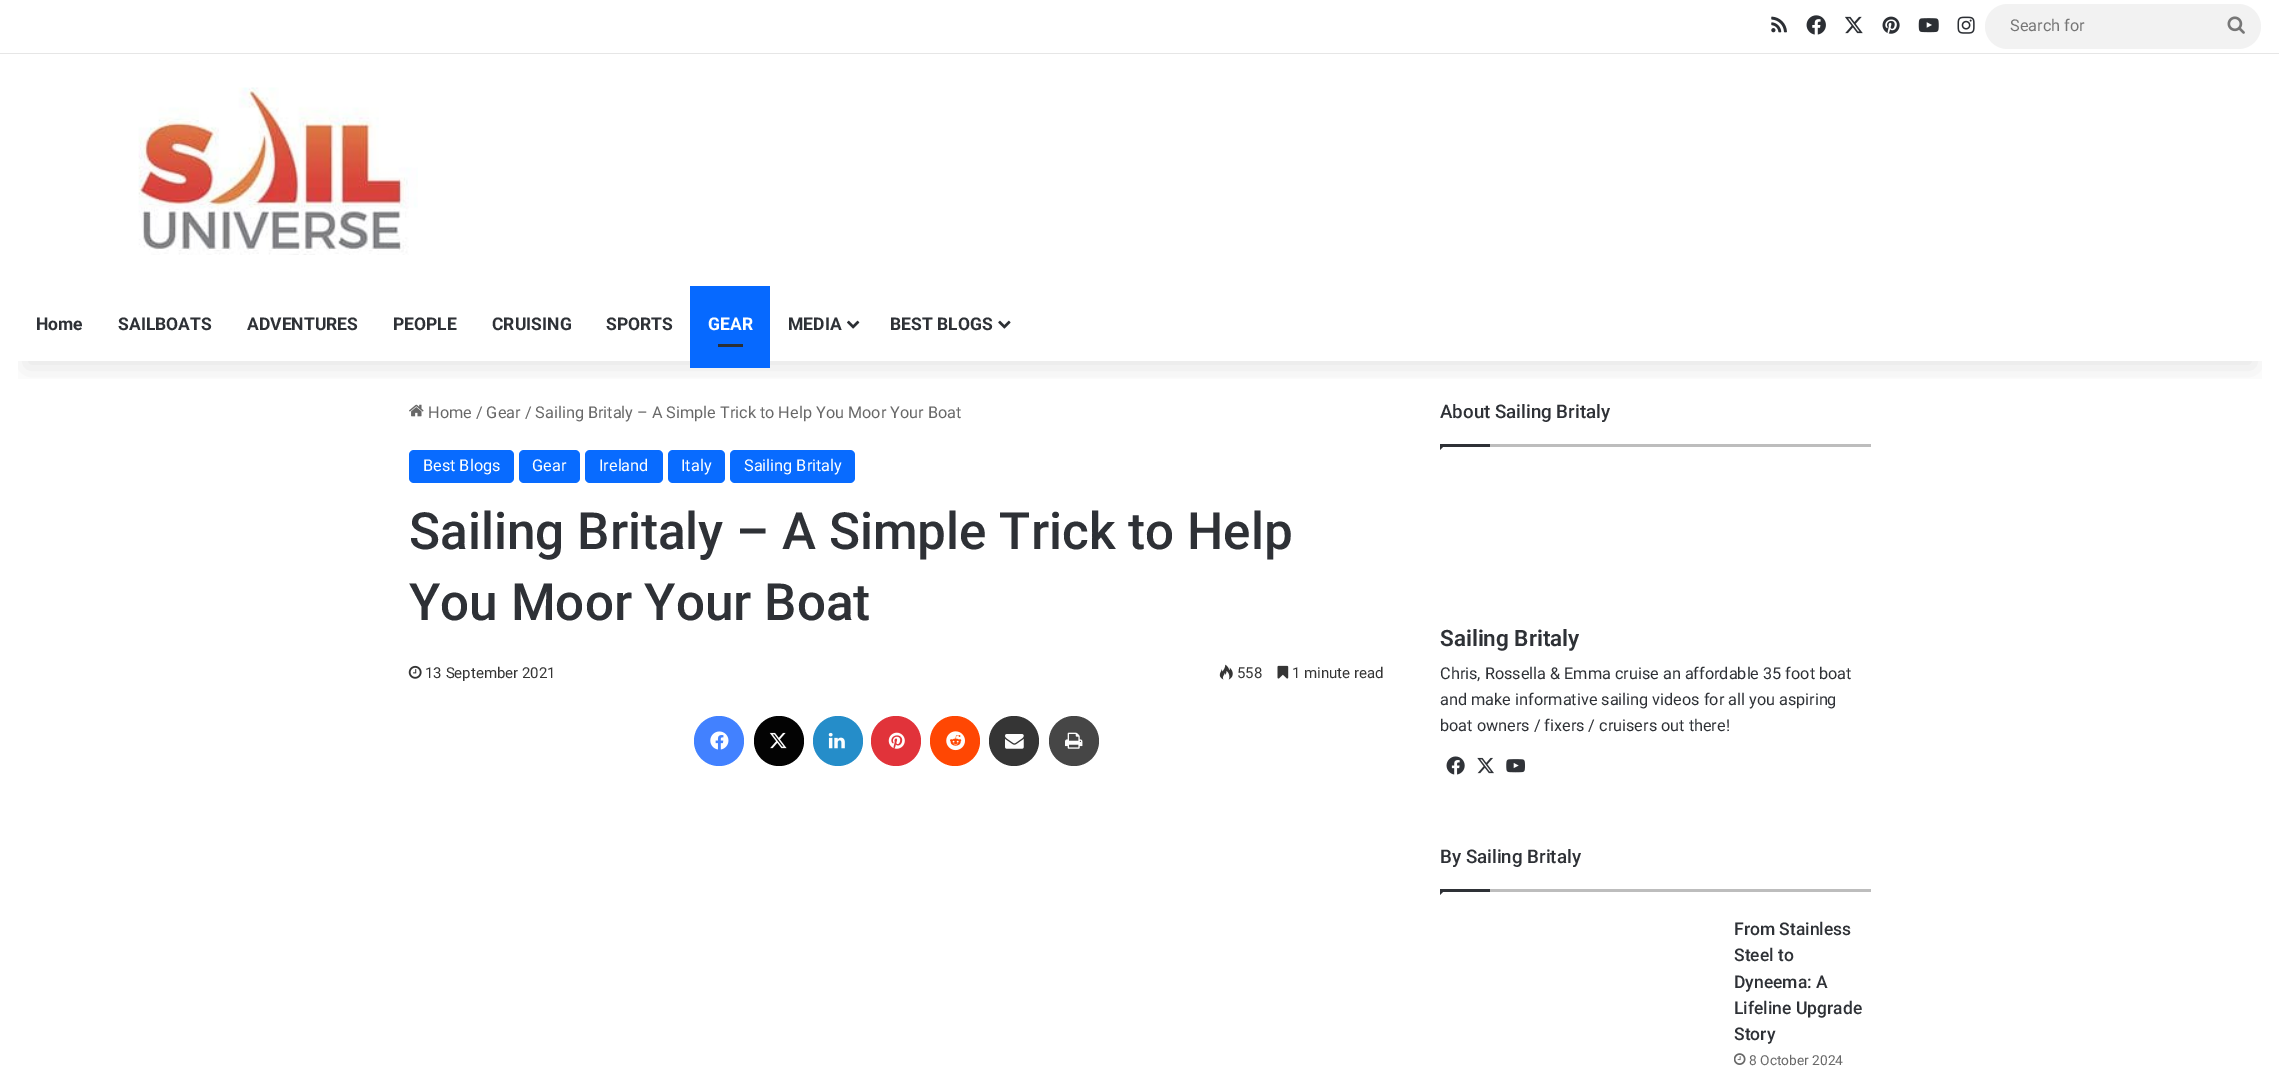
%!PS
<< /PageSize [2279 1073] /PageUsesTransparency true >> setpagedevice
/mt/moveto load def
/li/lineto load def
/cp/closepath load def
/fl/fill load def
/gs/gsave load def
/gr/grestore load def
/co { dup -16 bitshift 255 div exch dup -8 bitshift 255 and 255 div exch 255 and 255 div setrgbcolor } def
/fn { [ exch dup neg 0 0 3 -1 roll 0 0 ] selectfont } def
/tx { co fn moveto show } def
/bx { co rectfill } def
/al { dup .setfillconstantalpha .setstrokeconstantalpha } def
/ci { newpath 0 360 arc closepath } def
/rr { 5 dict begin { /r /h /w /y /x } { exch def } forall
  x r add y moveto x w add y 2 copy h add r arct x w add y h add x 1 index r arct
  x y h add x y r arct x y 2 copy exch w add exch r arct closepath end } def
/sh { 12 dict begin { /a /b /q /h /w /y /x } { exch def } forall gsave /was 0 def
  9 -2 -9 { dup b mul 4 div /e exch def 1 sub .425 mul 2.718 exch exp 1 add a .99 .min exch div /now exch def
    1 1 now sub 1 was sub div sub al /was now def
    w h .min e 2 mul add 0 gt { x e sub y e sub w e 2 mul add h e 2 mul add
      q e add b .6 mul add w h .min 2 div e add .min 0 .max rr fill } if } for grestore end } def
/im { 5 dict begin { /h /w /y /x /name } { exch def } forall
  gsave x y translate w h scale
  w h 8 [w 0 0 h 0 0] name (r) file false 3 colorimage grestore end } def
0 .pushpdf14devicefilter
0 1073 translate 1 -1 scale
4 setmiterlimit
0 0 2279 1073 16#FFFFFF bx
(media/11.raw) 409 404 15 13 im
gs
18 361 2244 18 rectclip
16#000000 co
25 56 2230 312 0 12.5 .1 sh
gr
0 53 2279 1 16#E6E6E6 bx
(media/1.raw) 1771 16 16 17 im
(media/2.raw) 1806 15 20 20 im
(media/3.raw) 1845 16 18 18 im
(media/4.raw) 1882 16 18 18 im
(media/5.raw) 1918 18 21 15 im
(media/6.raw) 1957 16 18 18 im
16#F2F2F2 co
1985 4 276 45 22.5 rr fl
(media/7.raw) 2227 16 18 18 im
(media/8.raw) 138 87 280 168 im
690 286 80 82 16#0669FF bx
718 344 25 3 16#2C2F34 bx
(media/9.raw) 847 320 13 9 im
(media/10.raw) 998 320 13 9 im
16#086BFF co
409 450 105 33 5 rr fl
519 450 61 33 5 rr fl
585 450 78 33 5 rr fl
668 450 57 33 5 rr fl
730 450 125 33 5 rr fl
(media/12.raw) 408 665 14 14 im
(media/13.raw) 1219 664 14 16 im
(media/14.raw) 1277 665 12 14 im
16#4281FF co
719 741 25 ci fl
(media/15.raw) 710 731 19 19 im
16#030303 co
779 741 25 ci fl
(media/16.raw) 769 732 18 17 im
16#258DC9 co
838 741 25 ci fl
(media/17.raw) 828 732 17 17 im
16#E1333A co
896 741 25 ci fl
(media/18.raw) 888 732 17 17 im
16#FF4703 co
955 741 25 ci fl
(media/19.raw) 946 731 19 20 im
16#353535 co
1014 741 25 ci fl
(media/20.raw) 1005 734 19 15 im
16#464646 co
1074 741 25 ci fl
(media/21.raw) 1065 732 18 17 im
1490 444 381 3 16#BDBDBD bx
16#2E3136 co
1440 444 mt 1446 444 li 1440 450 li cp fl
1440 444 50 3 16#2E3136 bx
(media/22.raw) 1446 756 19 19 im
(media/23.raw) 1477 757 17 17 im
(media/24.raw) 1506 759 19 14 im
1490 889 381 3 16#BDBDBD bx
16#2E3136 co
1440 889 mt 1446 889 li 1440 895 li cp fl
1440 889 50 3 16#2E3136 bx
(media/25.raw) 1734 1053 12 12 im
(Search for) 2010 31 /Roboto-Regular 16.25 16#757575 tx
(Home) 36 330 /Roboto-Bold 17.5 16#2E3136 tx
(SAILBOATS) 118 330 /Roboto-Bold 17.5 16#2E3136 tx
(ADVENTURES) 247 330 /Roboto-Bold 17.5 16#2E3136 tx
(PEOPLE) 393 330 /Roboto-Bold 17.5 16#2E3136 tx
(CRUISING) 492 330 /Roboto-Bold 17.5 16#2E3136 tx
(SPORTS) 606 330 /Roboto-Bold 17.5 16#2E3136 tx
(GEAR) 708 330 /Roboto-Bold 17.5 16#FFFFFF tx
(MEDIA) 788 330 /Roboto-Bold 17.5 16#2E3136 tx
(BEST BLOGS) 890 330 /Roboto-Bold 17.5 16#2E3136 tx
(Home / Gear / Sailing Britaly – A Simple Trick to Help You Moor Your Boat) 428 418 /Roboto-Regular 16.25 16#686868 tx
(Best Blogs) 423 471 /Roboto-Regular 16.25 16#FFFFFF tx
(Gear) 532 471 /Roboto-Regular 16.25 16#FFFFFF tx
(Ireland) 599 471 /Roboto-Regular 16.25 16#FFFFFF tx
(Italy) 681 471 /Roboto-Regular 16.25 16#FFFFFF tx
(Sailing Britaly) 744 471 /Roboto-Regular 16.25 16#FFFFFF tx
(Sailing Britaly – A Simple Trick to Help) 409 549 /Roboto-Medium 51.25 16#2E3136 tx
(You Moor Your Boat) 409 620 /Roboto-Medium 51.25 16#2E3136 tx
(13 September 2021) 425 678 /Roboto-Regular 15 16#353535 tx
(558) 1237 678 /Roboto-Regular 15 16#353535 tx
(1 minute read) 1292 678 /Roboto-Regular 15 16#353535 tx
(About Sailing Britaly) 1440 418 /Roboto-Medium 18.75 16#2E3136 tx
(Sailing Britaly) 1440 646 /Roboto-SemiBold 22.5 16#2E3136 tx
(Chris, Rossella & Emma cruise an affordable 35 foot boat) 1440 679 /Roboto-Regular 16.25 16#2E3136 tx
(and make informative sailing videos for all you aspiring) 1440 705 /Roboto-Regular 16.25 16#2E3136 tx
(boat owners / fixers / cruisers out there!) 1440 731 /Roboto-Regular 16.25 16#2E3136 tx
(By Sailing Britaly) 1440 863 /Roboto-Medium 18.75 16#2E3136 tx
(From Stainless) 1734 935 /Roboto-Medium 17.5 16#2E3136 tx
(Steel to) 1734 961 /Roboto-Medium 17.5 16#2E3136 tx
(Dyneema: A) 1734 988 /Roboto-Medium 17.5 16#2E3136 tx
(Lifeline Upgrade) 1734 1014 /Roboto-Medium 17.5 16#2E3136 tx
(Story) 1734 1040 /Roboto-Medium 17.5 16#2E3136 tx
(8 October 2024) 1749 1065 /Roboto-Regular 13.75 16#686868 tx
.poppdf14devicefilter showpage
